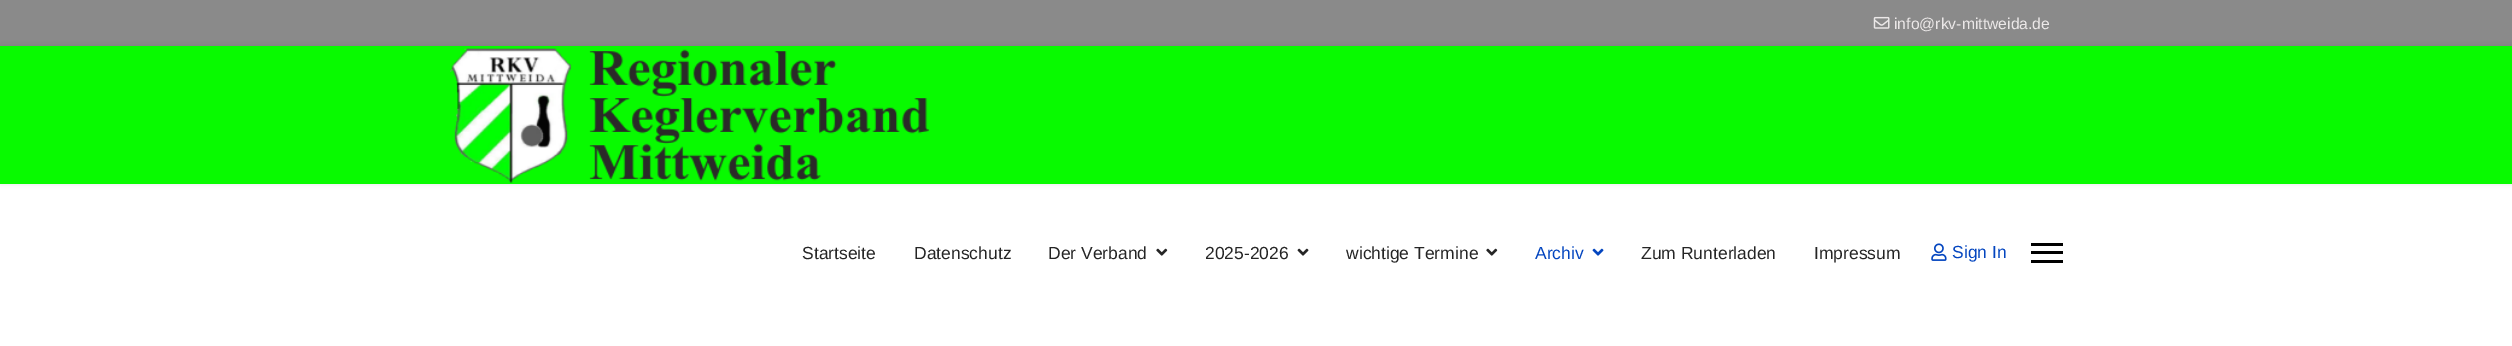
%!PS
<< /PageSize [2512 346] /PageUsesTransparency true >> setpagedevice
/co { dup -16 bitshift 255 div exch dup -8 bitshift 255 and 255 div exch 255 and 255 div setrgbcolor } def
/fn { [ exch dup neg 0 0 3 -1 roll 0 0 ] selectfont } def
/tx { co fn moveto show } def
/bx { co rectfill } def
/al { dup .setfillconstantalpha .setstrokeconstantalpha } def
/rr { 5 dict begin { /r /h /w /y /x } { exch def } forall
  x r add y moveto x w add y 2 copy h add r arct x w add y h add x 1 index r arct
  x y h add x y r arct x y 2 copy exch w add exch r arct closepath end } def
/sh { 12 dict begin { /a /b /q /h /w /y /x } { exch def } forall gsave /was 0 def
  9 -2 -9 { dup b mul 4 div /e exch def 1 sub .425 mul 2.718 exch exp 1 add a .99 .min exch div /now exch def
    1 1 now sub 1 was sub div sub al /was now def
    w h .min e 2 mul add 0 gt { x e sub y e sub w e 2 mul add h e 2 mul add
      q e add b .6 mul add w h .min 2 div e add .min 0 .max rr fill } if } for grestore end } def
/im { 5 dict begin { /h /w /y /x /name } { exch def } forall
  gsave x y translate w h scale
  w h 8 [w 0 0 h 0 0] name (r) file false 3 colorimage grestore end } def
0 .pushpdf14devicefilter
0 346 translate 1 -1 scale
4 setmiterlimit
0 0 2512 346 16#FFFFFF bx
0 0 2512 46 16#8A8A8A bx
(media/1.raw) 1873 16 17 13 im
16#000000 co
0 46 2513 138 0 2.5 .1 sh
0 46 2512 138 16#08FA00 bx
(media/2.raw) 450 48 480 135 im
(media/3.raw) 1156 248 12 8 im
(media/4.raw) 1297 248 12 8 im
(media/3.raw) 1486 248 12 8 im
(media/5.raw) 1592 248 12 8 im
(media/6.raw) 1931 243 16 18 im
2031 243 32 3 16#000000 bx
2031 251 32 3 16#000000 bx
2031 260 32 3 16#000000 bx
(info@rkv-mittweida.de) 1894 29 /LiberationSans-Regular 15.75 16#EBE8E8 tx
(Startseite) 802 259 /LiberationSans-Regular 17.5 16#252525 tx
(Datenschutz) 914 259 /LiberationSans-Regular 17.5 16#252525 tx
(Der Verband) 1048 259 /LiberationSans-Regular 17.5 16#252525 tx
(2025-2026) 1205 259 /LiberationSans-Regular 17.5 16#252525 tx
(wichtige Termine) 1346 259 /LiberationSans-Regular 17.5 16#252525 tx
(Archiv) 1535 259 /LiberationSans-Regular 17.5 16#0345BF tx
(Zum Runterladen) 1641 259 /LiberationSans-Regular 17.5 16#252525 tx
(Impressum) 1814 259 /LiberationSans-Regular 17.5 16#252525 tx
(Sign In) 1952 258 /LiberationSans-Regular 17.5 16#0345BF tx
.poppdf14devicefilter showpage
